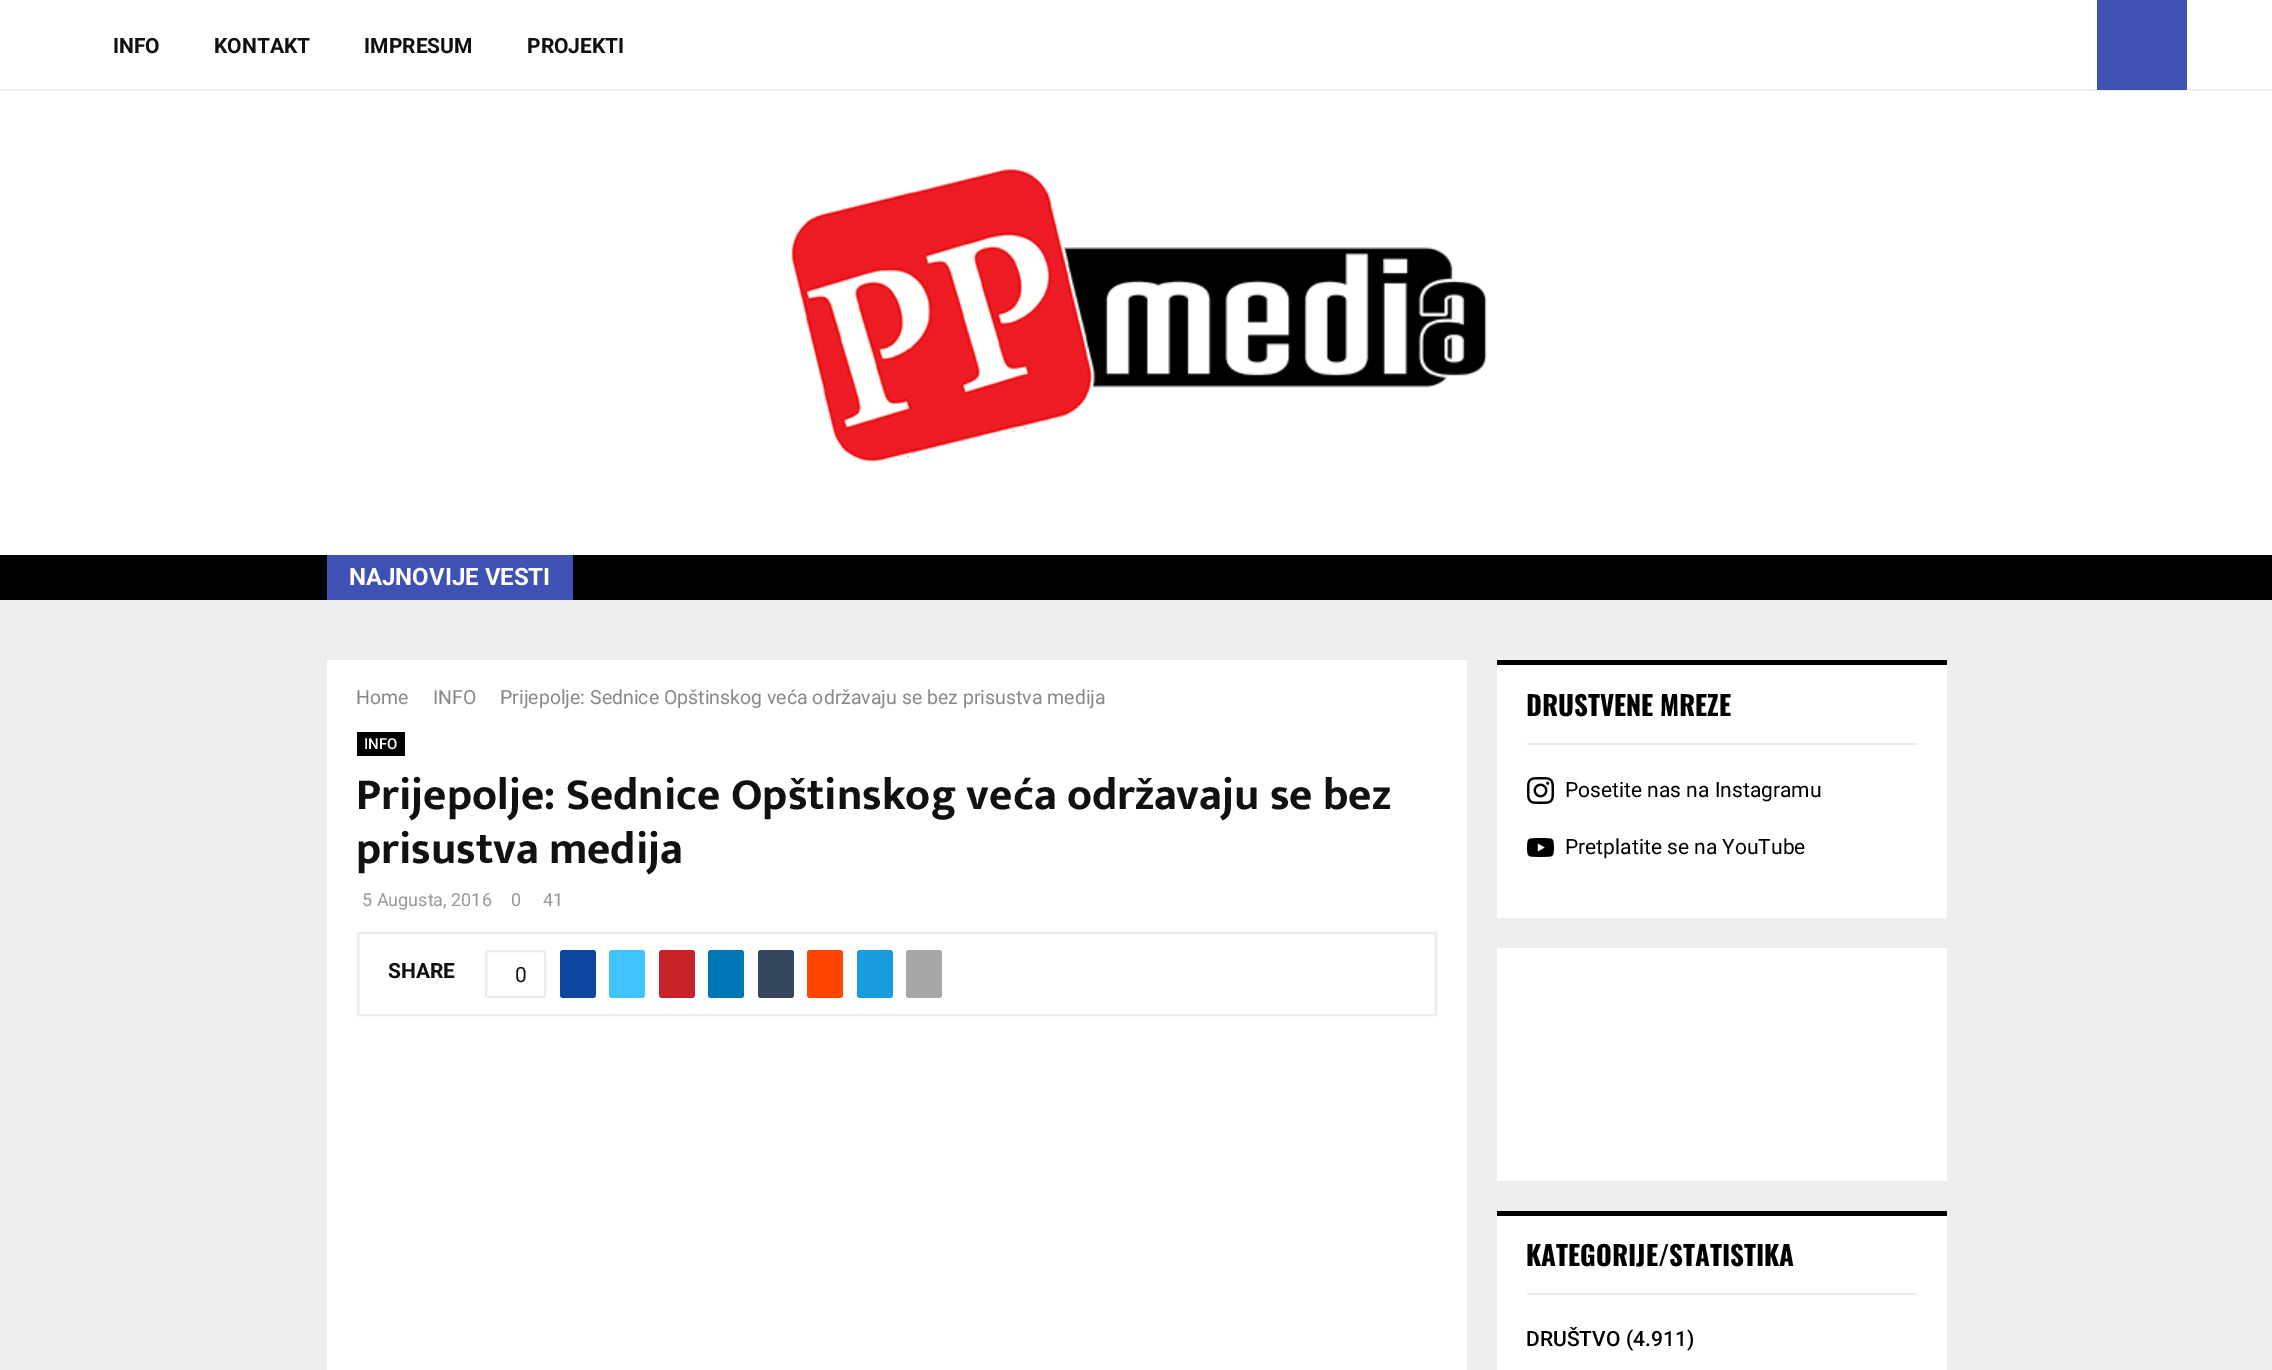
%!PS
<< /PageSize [2272 1370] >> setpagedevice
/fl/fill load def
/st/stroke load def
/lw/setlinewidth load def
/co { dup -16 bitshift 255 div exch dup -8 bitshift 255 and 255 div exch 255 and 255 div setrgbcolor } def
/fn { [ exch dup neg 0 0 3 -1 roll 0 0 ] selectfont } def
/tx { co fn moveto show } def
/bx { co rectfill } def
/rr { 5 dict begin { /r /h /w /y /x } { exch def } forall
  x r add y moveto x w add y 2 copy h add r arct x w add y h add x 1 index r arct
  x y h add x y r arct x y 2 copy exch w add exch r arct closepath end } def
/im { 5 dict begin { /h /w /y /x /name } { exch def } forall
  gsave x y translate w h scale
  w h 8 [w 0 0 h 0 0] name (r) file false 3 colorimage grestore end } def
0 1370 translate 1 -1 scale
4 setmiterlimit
0 0 2272 1370 16#EEEEEE bx
0 0 2272 89 16#FFFFFF bx
2097 0 90 90 16#3F51B5 bx
0 91 2272 464 16#FFFFFF bx
(media/1.raw) 791 169 697 294 im
0 555 2272 45 16#000000 bx
327 555 246 45 16#3F51B5 bx
327 660 1140 710 16#FFFFFF bx
357 732 48 24 16#000000 bx
16#ECECEC co
2 lw
358 933 1078 82 rectstroke
486 951 59 46 2 rr st
16#0D47A1 co
560 950 36 48 3 rr fl
16#40C4FF co
609 950 36 48 3 rr fl
16#C92228 co
659 950 36 48 3 rr fl
16#0077B5 co
708 950 36 48 3 rr fl
16#34465D co
758 950 36 48 3 rr fl
16#FF4500 co
807 950 36 48 3 rr fl
16#179CDE co
857 950 36 48 3 rr fl
16#A7A7A7 co
906 950 36 48 3 rr fl
1497 665 450 253 16#FFFFFF bx
1527 743 390 2 16#ECECEC bx
1497 660 450 5 16#000000 bx
(media/2.raw) 1527 777 27 27 im
(media/3.raw) 1527 838 27 19 im
1497 948 450 233 16#FFFFFF bx
1497 1216 450 154 16#FFFFFF bx
1527 1293 390 2 16#ECECEC bx
1497 1211 450 5 16#000000 bx
(INFO) 113 53 /Roboto-Bold 21 16#111111 tx
(KONTAKT) 214 53 /Roboto-Bold 21 16#111111 tx
(IMPRESUM) 364 53 /Roboto-Bold 21 16#111111 tx
(PROJEKTI) 527 53 /Roboto-Bold 21 16#111111 tx
(NAJNOVIJE VESTI) 349 585 /Roboto-Bold 24 16#FFFFFF tx
(Home) 356 704 /Roboto-Regular 19.5 16#888888 tx
(INFO) 433 704 /Roboto-Regular 19.5 16#888888 tx
(Prijepolje: Sednice Opštinskog veća održavaju se bez prisustva medija) 500 704 /Roboto-Regular 19.5 16#888888 tx
(INFO) 364 749 /Roboto-Medium 15 16#FFFFFF tx
(Prijepolje: Sednice Opštinskog veća održavaju se bez) 356 809 /MuktaVaani-Bold 45 16#111111 tx
(prisustva medija) 356 863 /MuktaVaani-Bold 45 16#111111 tx
(5 Augusta, 2016) 362 906 /Roboto-Regular 18 16#999999 tx
(0) 511 906 /Roboto-Regular 18 16#999999 tx
(41) 543 906 /Roboto-Regular 18 16#999999 tx
(SHARE) 388 978 /Roboto-Bold 21 16#111111 tx
(0) 515 982 /Roboto-Regular 21 16#111111 tx
(DRUSTVENE MREZE) 1526 716 /Oswald-Bold 27 16#000000 tx
(Posetite nas na Instagramu) 1565 797 /Roboto-Regular 21 16#000000 tx
(Pretplatite se na YouTube) 1565 854 /Roboto-Regular 21 16#000000 tx
(KATEGORIJE/STATISTIKA) 1526 1266 /Oswald-Bold 27 16#000000 tx
(DRUŠTVO) 1526 1346 /Roboto-Medium 21 16#000000 tx
(\(4.911\)) 1626 1346 /Roboto-Medium 21 16#000000 tx
showpage
